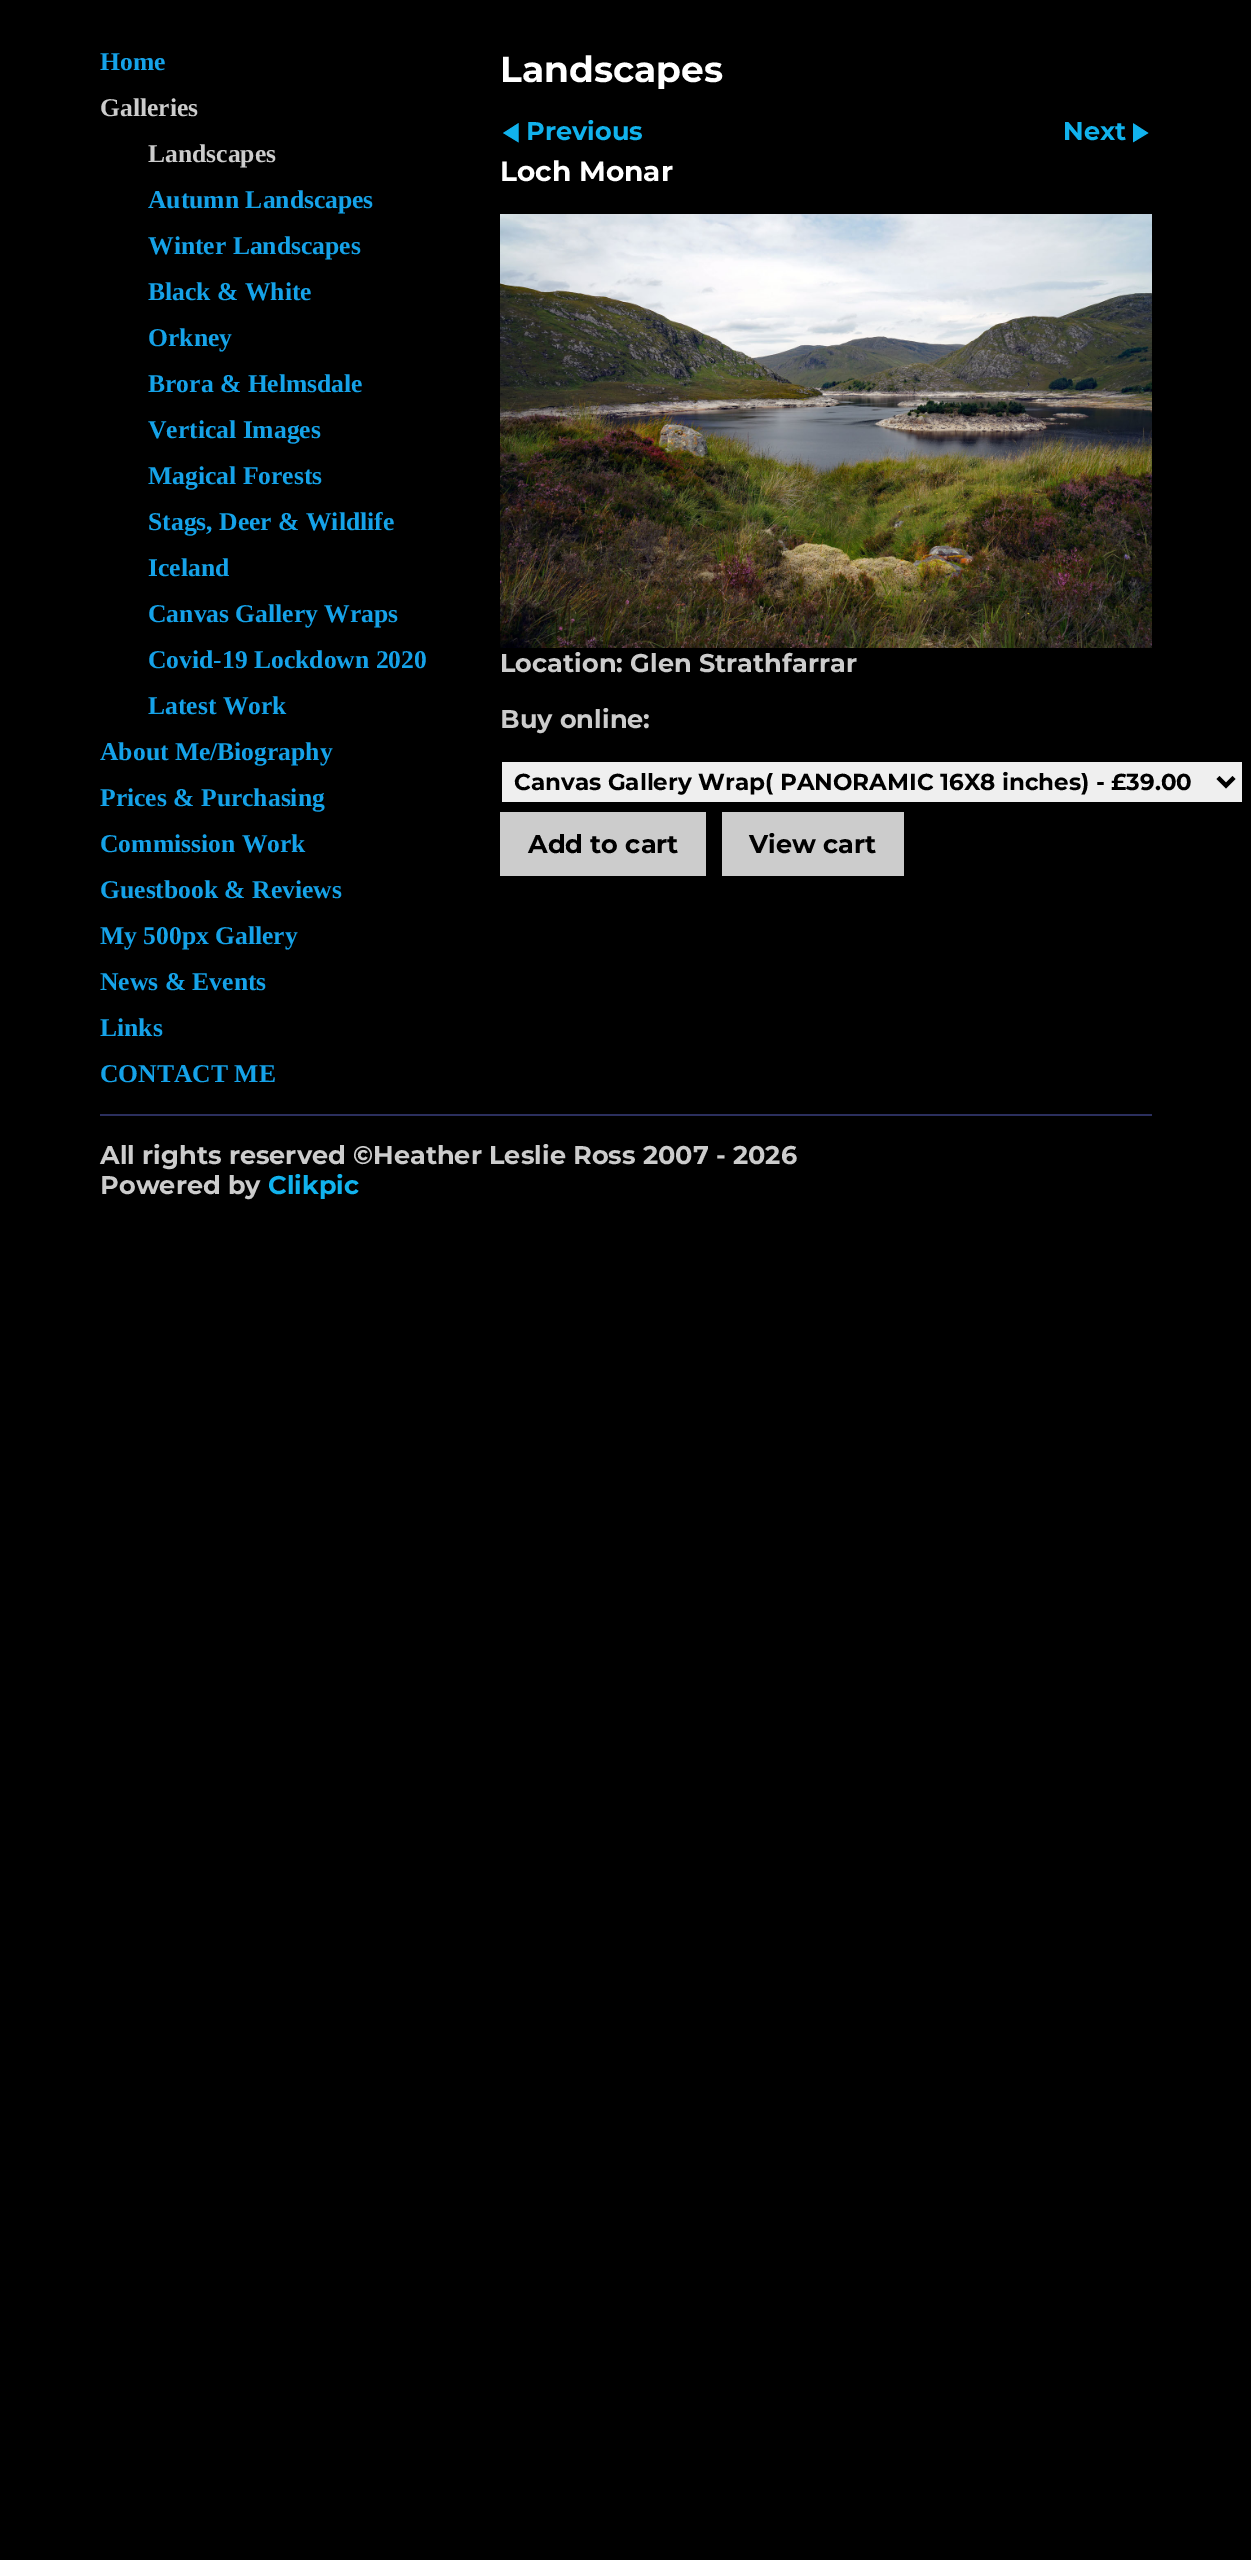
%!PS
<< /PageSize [1251 2560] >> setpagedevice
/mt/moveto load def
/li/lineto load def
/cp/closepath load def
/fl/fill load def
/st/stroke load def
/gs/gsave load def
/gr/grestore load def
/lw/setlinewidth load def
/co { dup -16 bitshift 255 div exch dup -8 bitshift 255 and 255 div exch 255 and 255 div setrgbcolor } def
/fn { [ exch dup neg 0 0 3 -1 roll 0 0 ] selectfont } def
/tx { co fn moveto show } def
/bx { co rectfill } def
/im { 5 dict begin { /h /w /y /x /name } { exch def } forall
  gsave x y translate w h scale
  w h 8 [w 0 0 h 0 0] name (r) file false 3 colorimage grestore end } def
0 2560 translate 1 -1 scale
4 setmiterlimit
0 0 1251 2560 16#000000 bx
16#11B2ED co
518 124 mt 518 141.5 li 504 133 li cp gs fl gr
.9 lw
st
1133.5 124 mt 1133.5 141.5 li 1147.5 133 li cp gs fl gr
st
(media/1.raw) 500 214 652 434 im
502 762 740 40 16#EFEFEF bx
16#000000 co
4 lw
1218 777.5 mt 1226 785.5 li 1234 777.5 li st
500 812 206 64 16#CCCCCC bx
722 812 182 64 16#CCCCCC bx
100 1114 1052 2 16#2B2F5E bx
(Home) 100 70 /LiberationSerif-Bold 25.6 16#15A2E8 tx
(Galleries) 100 116 /LiberationSerif-Bold 25.6 16#CCCCCC tx
(About Me/Biography) 100 760 /LiberationSerif-Bold 25.6 16#15A2E8 tx
(Prices & Purchasing) 100 806 /LiberationSerif-Bold 25.6 16#15A2E8 tx
(Commission Work) 100 852 /LiberationSerif-Bold 25.6 16#15A2E8 tx
(Guestbook & Reviews) 100 898 /LiberationSerif-Bold 25.6 16#15A2E8 tx
(My 500px Gallery) 100 944 /LiberationSerif-Bold 25.6 16#15A2E8 tx
(News & Events) 100 990 /LiberationSerif-Bold 25.6 16#15A2E8 tx
(Links) 100 1036 /LiberationSerif-Bold 25.6 16#15A2E8 tx
(CONTACT ME) 100 1082 /LiberationSerif-Bold 25.6 16#15A2E8 tx
(Landscapes) 500 82 /Montserrat-Bold 36 16#FFFFFF tx
(Previous) 526 140 /Montserrat-Bold 25.6 16#11B2ED tx
(Next) 1063 140 /Montserrat-Bold 25.6 16#11B2ED tx
(Loch Monar) 500 181 /Montserrat-Bold 28 16#FFFFFF tx
(Location: Glen Strathfarrar) 500 672 /Montserrat-Bold 25.6 16#CCCCCC tx
(Buy online:) 500 728 /Montserrat-Bold 25.6 16#CCCCCC tx
(Canvas Gallery Wrap\( PANORAMIC 16X8 inches\) - £39.00) 514 790 /Montserrat-Bold 23.05 16#000000 tx
(Add to cart) 528 853 /Montserrat-Bold 25.6 16#000000 tx
(View cart) 749 853 /Montserrat-Bold 25.6 16#000000 tx
(Landscapes) 148 162 /LiberationSerif-Bold 25.6 16#CCCCCC tx
(Autumn Landscapes) 148 208 /LiberationSerif-Bold 25.6 16#15A2E8 tx
(Winter Landscapes) 148 254 /LiberationSerif-Bold 25.6 16#15A2E8 tx
(Black & White) 148 300 /LiberationSerif-Bold 25.6 16#15A2E8 tx
(Orkney) 148 346 /LiberationSerif-Bold 25.6 16#15A2E8 tx
(Brora & Helmsdale) 148 392 /LiberationSerif-Bold 25.6 16#15A2E8 tx
(Vertical Images) 148 438 /LiberationSerif-Bold 25.6 16#15A2E8 tx
(Magical Forests) 148 484 /LiberationSerif-Bold 25.6 16#15A2E8 tx
(Stags, Deer & Wildlife) 148 530 /LiberationSerif-Bold 25.6 16#15A2E8 tx
(Iceland) 148 576 /LiberationSerif-Bold 25.6 16#15A2E8 tx
(Canvas Gallery Wraps) 148 622 /LiberationSerif-Bold 25.6 16#15A2E8 tx
(Covid-19 Lockdown 2020) 148 668 /LiberationSerif-Bold 25.6 16#15A2E8 tx
(Latest Work) 148 714 /LiberationSerif-Bold 25.6 16#15A2E8 tx
(All rights reserved ©Heather Leslie Ross 2007 - 2026) 100 1164 /Montserrat-Bold 25.6 16#CCCCCC tx
(Powered by) 100 1194 /Montserrat-Bold 25.6 16#CCCCCC tx
(Clikpic) 268 1194 /Montserrat-Bold 25.6 16#11B2ED tx
showpage
